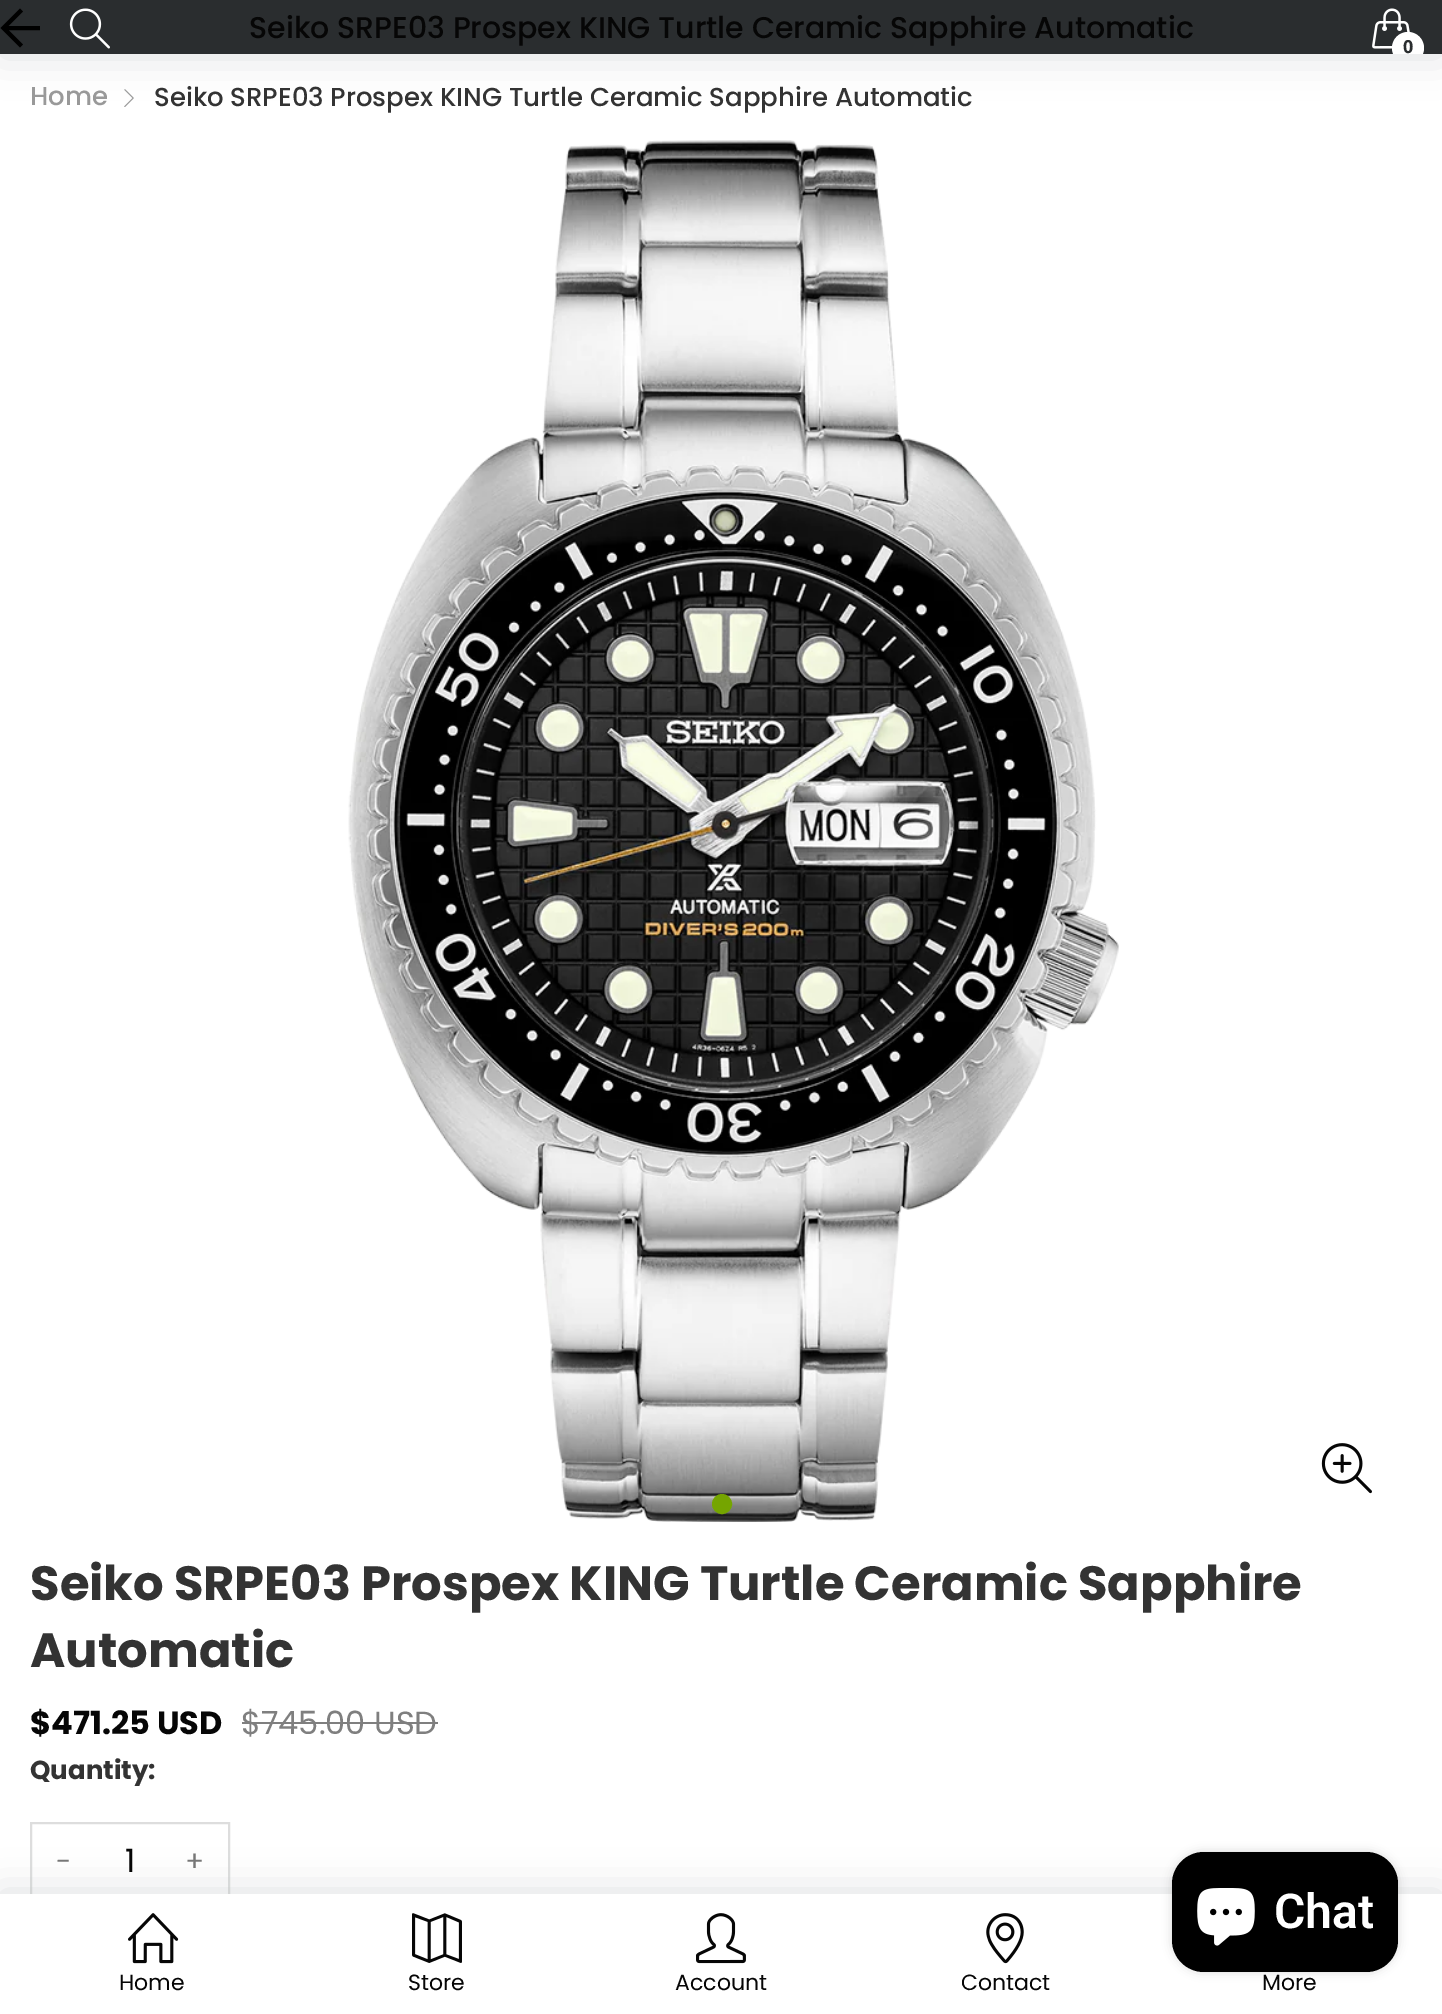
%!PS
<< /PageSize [1442 2014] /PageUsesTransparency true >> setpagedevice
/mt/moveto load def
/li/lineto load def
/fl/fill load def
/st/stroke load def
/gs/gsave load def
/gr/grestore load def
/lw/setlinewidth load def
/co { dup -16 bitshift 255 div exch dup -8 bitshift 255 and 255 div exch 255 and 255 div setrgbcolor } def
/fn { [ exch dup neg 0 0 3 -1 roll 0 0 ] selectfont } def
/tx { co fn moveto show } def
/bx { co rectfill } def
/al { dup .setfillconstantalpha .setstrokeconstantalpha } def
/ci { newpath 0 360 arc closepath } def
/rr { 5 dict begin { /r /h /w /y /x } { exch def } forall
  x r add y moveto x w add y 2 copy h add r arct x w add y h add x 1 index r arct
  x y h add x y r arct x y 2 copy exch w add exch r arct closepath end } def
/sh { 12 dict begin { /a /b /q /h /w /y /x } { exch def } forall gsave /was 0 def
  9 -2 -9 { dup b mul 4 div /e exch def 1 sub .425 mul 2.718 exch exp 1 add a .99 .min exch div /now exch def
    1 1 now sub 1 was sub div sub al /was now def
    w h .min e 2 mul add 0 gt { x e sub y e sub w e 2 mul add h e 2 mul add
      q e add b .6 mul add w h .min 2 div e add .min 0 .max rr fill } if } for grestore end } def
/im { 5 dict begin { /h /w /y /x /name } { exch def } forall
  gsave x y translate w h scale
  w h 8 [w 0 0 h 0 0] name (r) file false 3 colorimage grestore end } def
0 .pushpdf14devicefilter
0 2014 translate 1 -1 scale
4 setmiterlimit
0 0 1442 2014 16#FFFFFF bx
(media/3.raw) 124 89 10 18 im
16#BABFC2 co
0 2 1442 54 0 20 .5 sh
0 0 1442 54 16#2A2D2F bx
gs
0 8 40 40 rectclip
16#000000 co
4 lw
21.5 46 mt 3.5 28 li 21.5 10 li 45 28 mt 3.5 28 li st
gr
(media/1.raw) 69 8 41 41 im
(media/2.raw) 1372 8 38 41 im
gs
0 0 1442 54 rectclip
16#FFFFFF co
1408 48 16 ci fl
gr
(media/4.raw) 348 140 771 1382 im
(media/5.raw) 1321 1443 51 51 im
16#75A500 co
722 1504 9 ci gs fl gr
2 lw
st
242 1722 196 2 16#7F7F7F bx
16#DDDDDD co
31 1823 198 76 rectstroke
16#BABFC2 co
0 1892 1442 120 0 20 .5 sh
0 1894 1442 120 16#FFFFFF bx
16#000000 co
1172 1852 226 120 32 5 .15 sh
1172 1852 226 120 32 rr fl
(media/6.raw) 1197 1888 58 58 im
(media/7.raw) 128 1913 51 51 im
(media/8.raw) 412 1913 50 50 im
(media/9.raw) 696 1913 50 51 im
(media/10.raw) 986 1913 38 51 im
(Seiko SRPE03 Prospex KING Turtle Ceramic Sapphire Automatic) 249 38 /Poppins-Medium 30 16#060606 tx
(0) 1403 53 /OpenSans-Bold 18 16#2A2D2F tx
(Home) 30 105 /Poppins-Medium 26 16#999999 tx
(Seiko SRPE03 Prospex KING Turtle Ceramic Sapphire Automatic) 154 106 /Poppins-Medium 26 16#333333 tx
(Seiko SRPE03 Prospex KING Turtle Ceramic Sapphire) 30 1600 /Poppins-Bold 48 16#333333 tx
(Automatic) 30 1667 /Poppins-Bold 48 16#333333 tx
($471.25 USD) 30 1734 /Poppins-Bold 32 16#060606 tx
($745.00 USD) 241 1734 /Poppins-Regular 32 16#7F7F7F tx
(Quantity:) 30 1779 /Poppins-Bold 26 16#333333 tx
(-) 56 1871 /Poppins-Regular 28 16#777777 tx
(1) 125 1872 /Poppins-Regular 32 16#060606 tx
(+) 185 1871 /Poppins-Regular 28 16#777777 tx
(Chat) 1274 1928 /Roboto-SemiBold 48 16#FFFFFF tx
(Home) 119 1990 /Poppins-Regular 22 16#060606 tx
(Store) 408 1990 /Poppins-Regular 22 16#060606 tx
(Account) 675 1990 /Poppins-Regular 22 16#060606 tx
(Contact) 961 1990 /Poppins-Regular 22 16#060606 tx
(More) 1262 1990 /Poppins-Regular 22 16#060606 tx
.poppdf14devicefilter showpage
